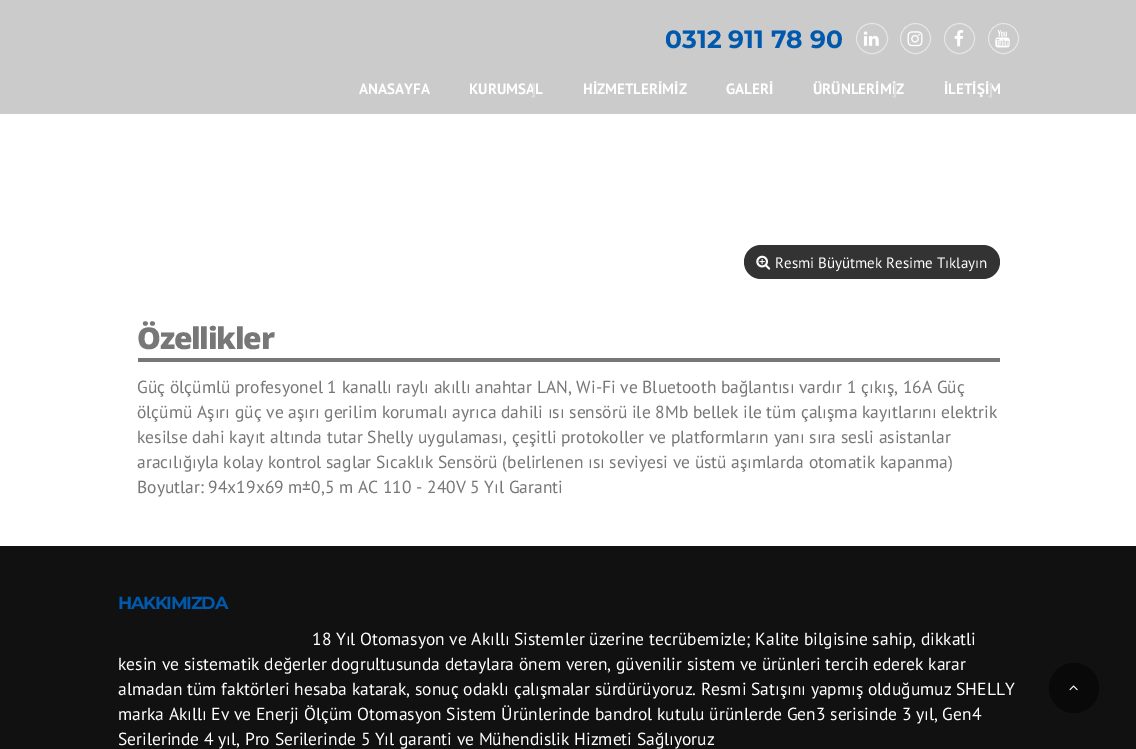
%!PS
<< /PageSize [1136 749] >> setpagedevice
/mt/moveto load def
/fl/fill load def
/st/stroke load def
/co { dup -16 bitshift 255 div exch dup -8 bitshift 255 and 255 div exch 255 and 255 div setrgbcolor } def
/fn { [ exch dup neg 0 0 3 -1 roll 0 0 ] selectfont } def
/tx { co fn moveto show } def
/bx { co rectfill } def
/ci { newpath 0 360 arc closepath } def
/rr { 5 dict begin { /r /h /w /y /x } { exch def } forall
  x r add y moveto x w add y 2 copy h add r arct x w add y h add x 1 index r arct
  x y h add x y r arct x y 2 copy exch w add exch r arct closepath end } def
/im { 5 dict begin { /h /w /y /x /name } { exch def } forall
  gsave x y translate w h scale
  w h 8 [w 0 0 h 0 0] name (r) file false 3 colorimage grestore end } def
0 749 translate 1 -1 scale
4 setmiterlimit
0 0 1136 749 16#FFFFFF bx
0 0 1136 114 16#CBCBCC bx
16#E5E5E6 co
856.5 23.5 31 30 15 rr st
(media/1.raw) 863 31 16 15 im
915.5 38.5 15 ci st
(media/2.raw) 907 31 16 16 im
959.5 38.5 15 ci st
(media/3.raw) 954 30 10 17 im
1003.5 38.5 15 ci st
(media/4.raw) 995 30 15 18 im
16#333333 co
744 245 256 34 17 rr fl
(media/5.raw) 756 255 15 15 im
138 358 862 4 16#777777 bx
0 546 1136 203 16#111111 bx
16#090909 co
1074 688 25 ci fl
(media/6.raw) 1069 685 9 6 im
(0312 911 78 90) 665 48 /Montserrat-Bold 25 16#0059AC tx
(ANASAYFA) 359 94 /PTSans-Bold 15 16#FFFFFF tx
(KURUMSAL) 469 94 /PTSans-Bold 15 16#FFFFFF tx
(]) 531 94 /PTSans-Bold 15 16#DDDDDE tx
(HİZMETLERİMİZ) 583 94 /PTSans-Bold 15 16#FFFFFF tx
(GALERİ) 726 94 /PTSans-Bold 15 16#FFFFFF tx
(ÜRÜNLERİMİZ) 813 94 /PTSans-Bold 15 16#FFFFFF tx
(]) 892 94 /PTSans-Bold 15 16#DDDDDE tx
(İLETİŞİM) 944 94 /PTSans-Bold 15 16#FFFFFF tx
(]) 988 94 /PTSans-Bold 15 16#DDDDDE tx
(Resmi Büyütmek Resime Tıklayın) 775 268 /PTSans-Regular 15 16#FFFFFF tx
/OpenSans-ExtraBold 30 fn
16#777777 co
137 349 mt -1.25 0 (Özellikler) ashow
(Güç ölçümlü profesyonel 1 kanallı raylı akıllı anahtar LAN, Wi-Fi ve Bluetooth bağlantısı vardır 1 çıkış, 16A Güç) 137 393 /PTSans-Regular 17.5 16#777777 tx
(ölçümü Aşırı güç ve aşırı gerilim korumalı ayrıca dahili ısı sensörü ile 8Mb bellek ile tüm çalışma kayıtlarını elektrik) 137 418 /PTSans-Regular 17.5 16#777777 tx
(kesilse dahi kayıt altında tutar Shelly uygulaması, çeşitli protokoller ve platformların yanı sıra sesli asistanlar) 137 443 /PTSans-Regular 17.5 16#777777 tx
(aracılığıyla kolay kontrol saglar Sıcaklık Sensörü \(belirlenen ısı seviyesi ve üstü aşımlarda otomatik kapanma\)) 137 468 /PTSans-Regular 17.5 16#777777 tx
(Boyutlar: 94x19x69 m±0,5 m AC 110 - 240V 5 Yıl Garanti) 137 493 /PTSans-Regular 17.5 16#777777 tx
/Montserrat-Bold 17.5 fn
16#0059AC co
118 609 mt -1.25 0 (HAKKIMIZDA) ashow
(18 Yıl Otomasyon ve Akıllı Sistemler üzerine tecrübemizle; Kalite bilgisine sahip, dikkatli) 312 645 /PTSans-Regular 17.5 16#FFFFFF tx
(kesin ve sistematik değerler dogrultusunda detaylara önem veren, güvenilir sistem ve ürünleri tercih ederek karar) 118 670 /PTSans-Regular 17.5 16#FFFFFF tx
(almadan tüm faktörleri hesaba katarak, sonuç odaklı çalışmalar sürdürüyoruz. Resmi Satışını yapmış olduğumuz SHELLY) 118 695 /PTSans-Regular 17.5 16#FFFFFF tx
(marka Akıllı Ev ve Enerji Ölçüm Otomasyon Sistem Ürünlerinde bandrol kutulu ürünlerde Gen3 serisinde 3 yıl, Gen4) 118 720 /PTSans-Regular 17.5 16#FFFFFF tx
(Serilerinde 4 yıl, Pro Serilerinde 5 Yıl garanti ve Mühendislik Hizmeti Sağlıyoruz) 118 745 /PTSans-Regular 17.5 16#FFFFFF tx
showpage
